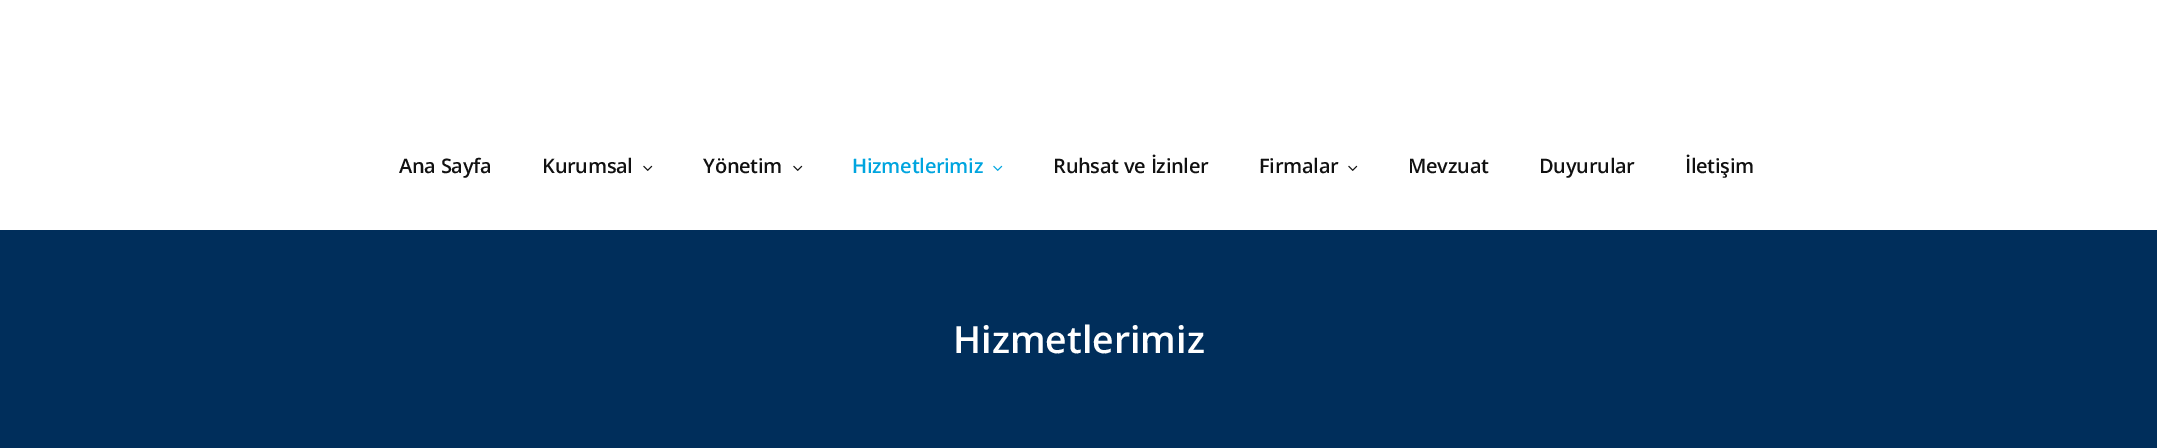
%!PS
<< /PageSize [2157 448] >> setpagedevice
/mt/moveto load def
/co { dup -16 bitshift 255 div exch dup -8 bitshift 255 and 255 div exch 255 and 255 div setrgbcolor } def
/fn { [ exch dup neg 0 0 3 -1 roll 0 0 ] selectfont } def
/tx { co fn moveto show } def
/bx { co rectfill } def
/im { 5 dict begin { /h /w /y /x /name } { exch def } forall
  gsave x y translate w h scale
  w h 8 [w 0 0 h 0 0] name (r) file false 3 colorimage grestore end } def
0 448 translate 1 -1 scale
4 setmiterlimit
0 0 2157 448 16#FFFFFF bx
(media/1.raw) 643 165 10 6 im
(media/1.raw) 793 165 10 6 im
(media/2.raw) 993 165 10 6 im
(media/1.raw) 1348 165 10 6 im
0 230 2157 218 16#002E5B bx
/OpenSans-SemiBold 20 fn
16#111111 co
399 173 mt -.25 0 (Ana Sayfa) ashow
542 173 mt -.25 0 (Kurumsal) ashow
703 173 mt -.25 0 (Yönetim) ashow
16#00A5DF co
852 173 mt -.25 0 (Hizmetlerimiz) ashow
16#111111 co
1053 173 mt -.25 0 (Ruhsat ve İzinler) ashow
1259 173 mt -.25 0 (Firmalar) ashow
1408 173 mt -.25 0 (Mevzuat) ashow
1539 173 mt -.25 0 (Duyurular) ashow
1685 173 mt -.25 0 (İletişim) ashow
(Hizmetlerimiz) 953 353 /OpenSans-SemiBold 37.5 16#FFFFFF tx
showpage
